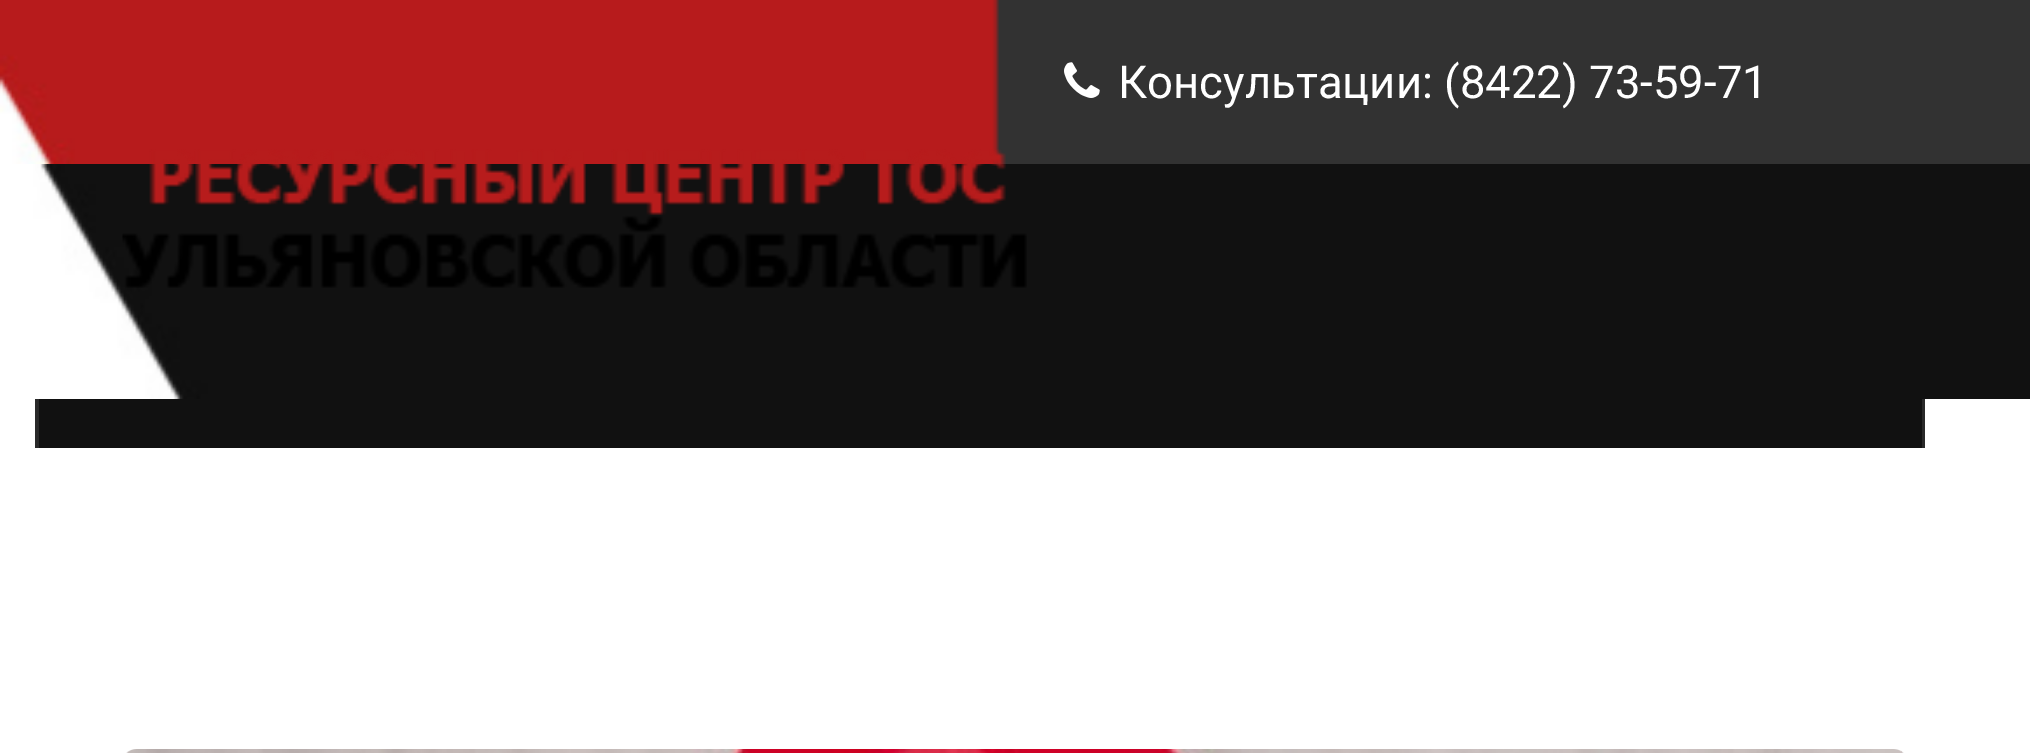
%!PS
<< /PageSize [2030 753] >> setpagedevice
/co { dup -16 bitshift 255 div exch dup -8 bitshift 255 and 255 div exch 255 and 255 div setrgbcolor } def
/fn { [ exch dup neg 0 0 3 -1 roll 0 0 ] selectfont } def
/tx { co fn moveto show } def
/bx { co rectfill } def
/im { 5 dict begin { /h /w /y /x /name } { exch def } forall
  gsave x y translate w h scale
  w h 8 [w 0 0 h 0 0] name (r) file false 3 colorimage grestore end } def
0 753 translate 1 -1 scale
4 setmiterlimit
0 0 2030 753 16#323232 bx
(media/1.raw) 0 0 999 164 im
(media/2.raw) 1064 62 36 36 im
(media/3.raw) 0 164 2030 235 im
(media/4.raw) 122 149 905 139 im
0 399 2030 354 16#FFFFFF bx
39 399 1883 49 16#111111 bx
1922 399 3 49 16#292929 bx
35 399 4 49 16#292929 bx
(media/5.raw) 126 749 1778 4 im
(Консультации: \(8422\) 73-59-71) 1118 98 /Roboto-Regular 45.5 16#FFFFFF tx
showpage
